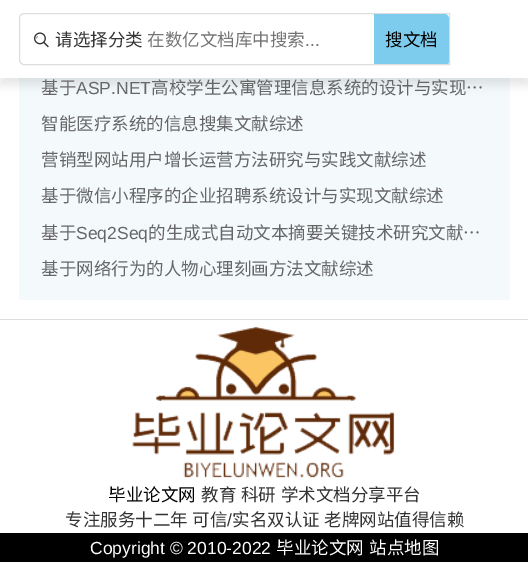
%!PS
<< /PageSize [528 562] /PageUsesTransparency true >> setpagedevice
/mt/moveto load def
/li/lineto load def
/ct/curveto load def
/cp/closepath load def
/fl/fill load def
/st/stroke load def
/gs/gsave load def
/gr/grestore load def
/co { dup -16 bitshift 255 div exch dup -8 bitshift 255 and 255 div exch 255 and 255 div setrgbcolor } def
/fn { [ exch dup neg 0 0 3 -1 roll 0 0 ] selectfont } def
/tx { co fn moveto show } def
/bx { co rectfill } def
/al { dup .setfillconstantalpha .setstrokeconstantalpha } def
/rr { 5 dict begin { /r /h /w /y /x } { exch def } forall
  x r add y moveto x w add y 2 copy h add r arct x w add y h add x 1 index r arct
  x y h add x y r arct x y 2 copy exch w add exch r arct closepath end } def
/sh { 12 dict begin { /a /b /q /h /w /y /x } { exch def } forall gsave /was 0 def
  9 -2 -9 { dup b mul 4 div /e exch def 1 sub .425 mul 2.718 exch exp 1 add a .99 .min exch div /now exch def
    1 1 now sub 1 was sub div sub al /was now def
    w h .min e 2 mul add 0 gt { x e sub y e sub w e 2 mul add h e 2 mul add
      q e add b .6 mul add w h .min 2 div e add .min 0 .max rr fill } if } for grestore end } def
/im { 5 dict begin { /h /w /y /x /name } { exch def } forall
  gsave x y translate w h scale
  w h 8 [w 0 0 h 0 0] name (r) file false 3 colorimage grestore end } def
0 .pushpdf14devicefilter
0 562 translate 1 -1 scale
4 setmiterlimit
0 0 528 562 16#FFFFFF bx
16#F4F9FC co
19 -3 491 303 2.5 rr fl
16#000000 co
0 8 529 77 0 5 .1 sh
0 0 528 78 16#FFFFFF bx
16#DDDDDD co
24 13.5 mt 449.5 13.5 li 449.5 64.5 li 24 64.5 li 21.5 64.5 19.5 62.5 19.5 60 ct 19.5 18 li 19.5 15.5 21.5 13.5 24 13.5 ct cp st
(media/1.raw) 34 32 15 16 im
gs
24 14 mt 449 14 li 449 64 li 24 64 li 22 64 20 62 20 60 ct 20 18 li 20 16 22 14 24 14 ct cp clip newpath
16#7DCCED co
374 14 mt 444 14 li 447 14 449 16 449 19 ct 449 61 li 449 64 447 66 444 66 ct 374 66 li cp fl
gr
0 319 528 1 16#DDDDDD bx
(media/2.raw) 132 326 263 152 im
0 533 528 29 16#000000 bx
(请选择分类) 55 46 /NotoSansCJKSC-Regular 17.5 16#333333 tx
(在数亿文档库中搜索) 147 46 /NotoSansCJKSC-Regular 17.5 16#757575 tx
(...) 305 46 /LiberationSans-Regular 17.5 16#757575 tx
(搜文档) 385 46 /NotoSansCJKSC-Regular 17.5 16#000000 tx
(基于) 41 94 /NotoSansCJKSC-Regular 17.5 16#666666 tx
(ASP.NET) 76 94 /LiberationSans-Regular 17.5 16#666666 tx
(高校学生公寓管理信息系统的设计与实现…) 151 94 /NotoSansCJKSC-Regular 17.5 16#666666 tx
(智能医疗系统的信息搜集文献综述) 41 130 /NotoSansCJKSC-Regular 17.5 16#666666 tx
(营销型网站用户增长运营方法研究与实践文献综述) 41 166 /NotoSansCJKSC-Regular 17.5 16#666666 tx
(基于微信小程序的企业招聘系统设计与实现文献综述) 41 202 /NotoSansCJKSC-Regular 17.5 16#666666 tx
(基于) 41 239 /NotoSansCJKSC-Regular 17.5 16#666666 tx
(Seq2Seq) 76 239 /LiberationSans-Regular 17.5 16#666666 tx
(的生成式自动文本摘要关键技术研究文献…) 148 239 /NotoSansCJKSC-Regular 17.5 16#666666 tx
(基于网络行为的人物心理刻画方法文献综述) 41 275 /NotoSansCJKSC-Regular 17.5 16#666666 tx
(毕业论文网) 108 501 /NotoSansCJKSC-Regular 17.5 16#000000 tx
16#333333 co
201 501 mt 1 0 32 (教育 科研 学术文档分享平台) widthshow
65 526 mt 1 0 32 (专注服务十二年 可信) widthshow
(/) 227 526 /LiberationSans-Regular 17.5 16#333333 tx
/NotoSansCJKSC-Regular 17.5 fn
232 526 mt 1 0 32 (实名双认证 老牌网站值得信赖) widthshow
(Copyright © 2010-2022) 90 554 /LiberationSans-Regular 17.5 16#FFFFFF tx
(毕业论文网) 276 554 /NotoSansCJKSC-Regular 17.5 16#FFFFFF tx
(站点地图) 369 554 /NotoSansCJKSC-Regular 17.5 16#FFFFFF tx
.poppdf14devicefilter showpage
